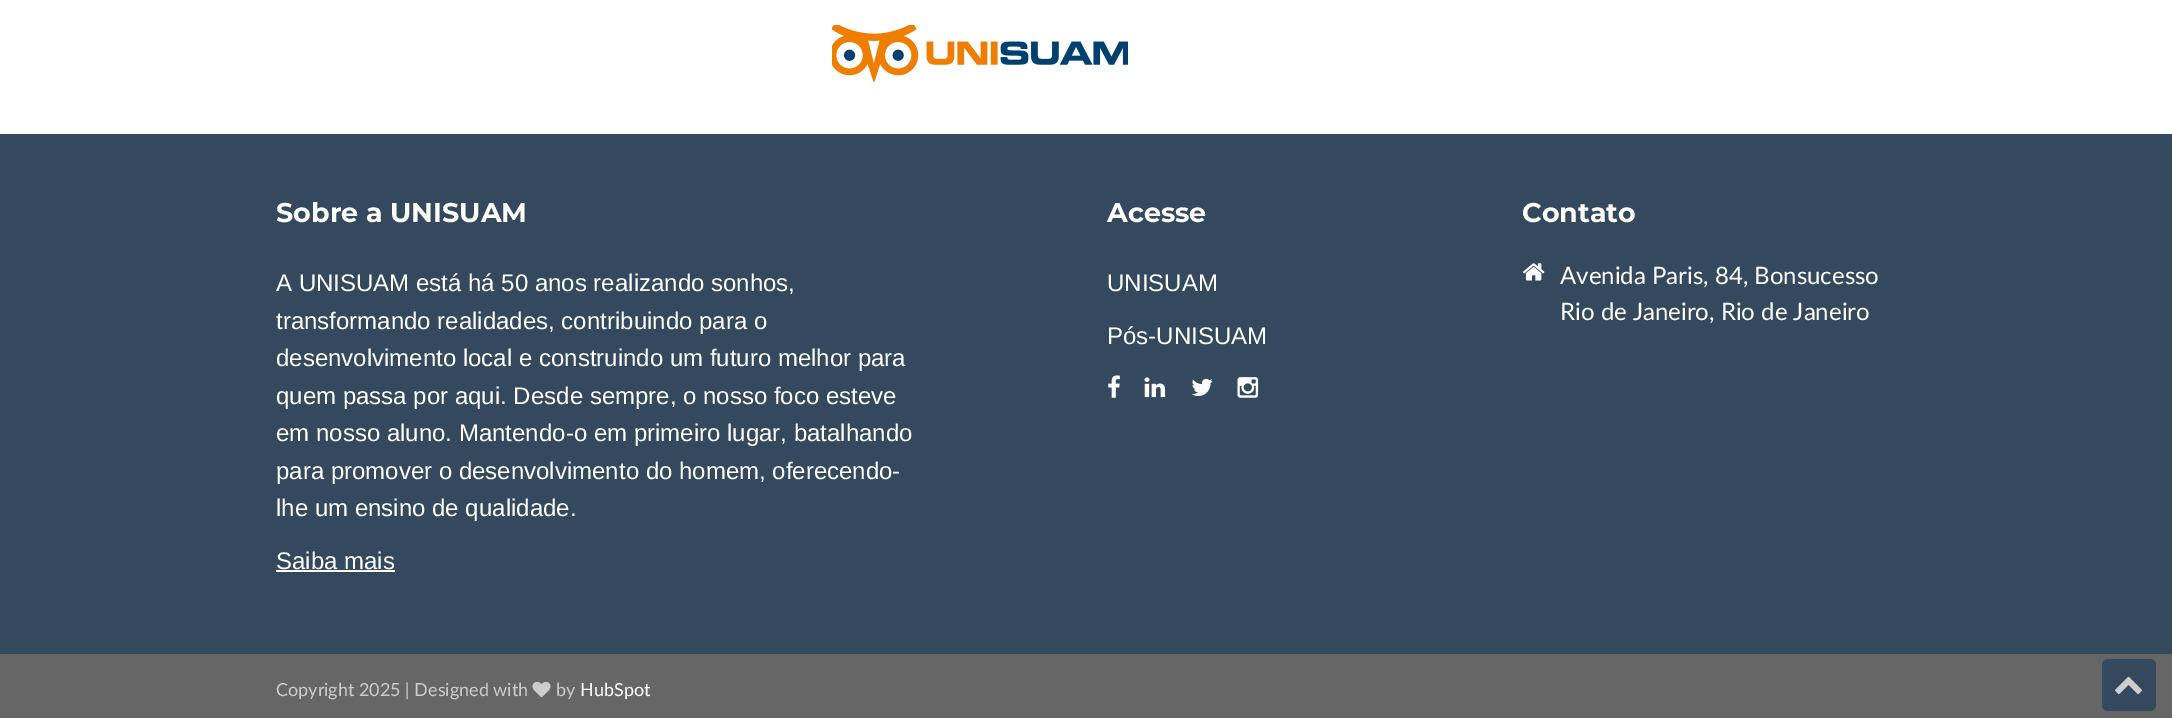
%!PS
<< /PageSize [2172 718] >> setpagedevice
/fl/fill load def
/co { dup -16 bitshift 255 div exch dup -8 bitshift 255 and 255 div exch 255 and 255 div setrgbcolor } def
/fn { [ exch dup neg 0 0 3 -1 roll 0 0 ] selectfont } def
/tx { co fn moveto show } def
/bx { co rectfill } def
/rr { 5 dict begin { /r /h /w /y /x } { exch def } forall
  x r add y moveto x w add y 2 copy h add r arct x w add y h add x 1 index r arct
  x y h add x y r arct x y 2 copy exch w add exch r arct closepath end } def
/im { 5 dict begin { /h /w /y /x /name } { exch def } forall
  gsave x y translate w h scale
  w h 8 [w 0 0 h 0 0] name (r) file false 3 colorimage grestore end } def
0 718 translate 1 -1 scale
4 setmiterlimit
0 0 2172 718 16#FFFFFF bx
(media/1.raw) 832 25 296 57 im
0 134 2172 520 16#34495E bx
276 570 119 2 16#FFFFFF bx
(media/2.raw) 1108 375 12 23 im
(media/3.raw) 1144 377 22 21 im
(media/4.raw) 1191 378 22 18 im
(media/5.raw) 1237 377 22 21 im
(media/6.raw) 1522 263 23 18 im
0 654 2172 64 16#666666 bx
(media/7.raw) 532 681 19 17 im
16#34495E co
2102 659 54 52 6 rr fl
(media/8.raw) 2115 676 27 19 im
(Sobre a UNISUAM) 276 222 /Montserrat-Bold 27 16#FFFFFF tx
(A UNISUAM está há 50 anos realizando sonhos,) 276 291 /LiberationSans-Regular 24 16#FFFFFF tx
(transformando realidades, contribuindo para o) 276 329 /LiberationSans-Regular 24 16#FFFFFF tx
(desenvolvimento local e construindo um futuro melhor para) 276 366 /LiberationSans-Regular 24 16#FFFFFF tx
(quem passa por aqui. Desde sempre, o nosso foco esteve) 276 404 /LiberationSans-Regular 24 16#FFFFFF tx
(em nosso aluno. Mantendo-o em primeiro lugar, batalhando) 276 441 /LiberationSans-Regular 24 16#FFFFFF tx
(para promover o desenvolvimento do homem, oferecendo-) 276 479 /LiberationSans-Regular 24 16#FFFFFF tx
(lhe um ensino de qualidade.) 276 516 /LiberationSans-Regular 24 16#FFFFFF tx
(Saiba mais) 276 569 /LiberationSans-Regular 24 16#FFFFFF tx
(Acesse) 1107 222 /Montserrat-Bold 27 16#FFFFFF tx
(UNISUAM) 1107 291 /LiberationSans-Regular 24 16#FFFFFF tx
(Pós-UNISUAM) 1107 344 /LiberationSans-Regular 24 16#FFFFFF tx
(Contato) 1522 222 /Montserrat-Bold 27 16#FFFFFF tx
(Avenida Paris, 84, Bonsucesso) 1560 284 /Lato-Regular 24 16#FFFFFF tx
(Rio de Janeiro, Rio de Janeiro) 1560 320 /Lato-Regular 24 16#FFFFFF tx
(Copyright 2025 | Designed with) 276 696 /Lato-Regular 18 16#CCCCCC tx
(by) 556 696 /Lato-Regular 18 16#CCCCCC tx
(HubSpot) 580 696 /Lato-Regular 18 16#FFFFFF tx
showpage
